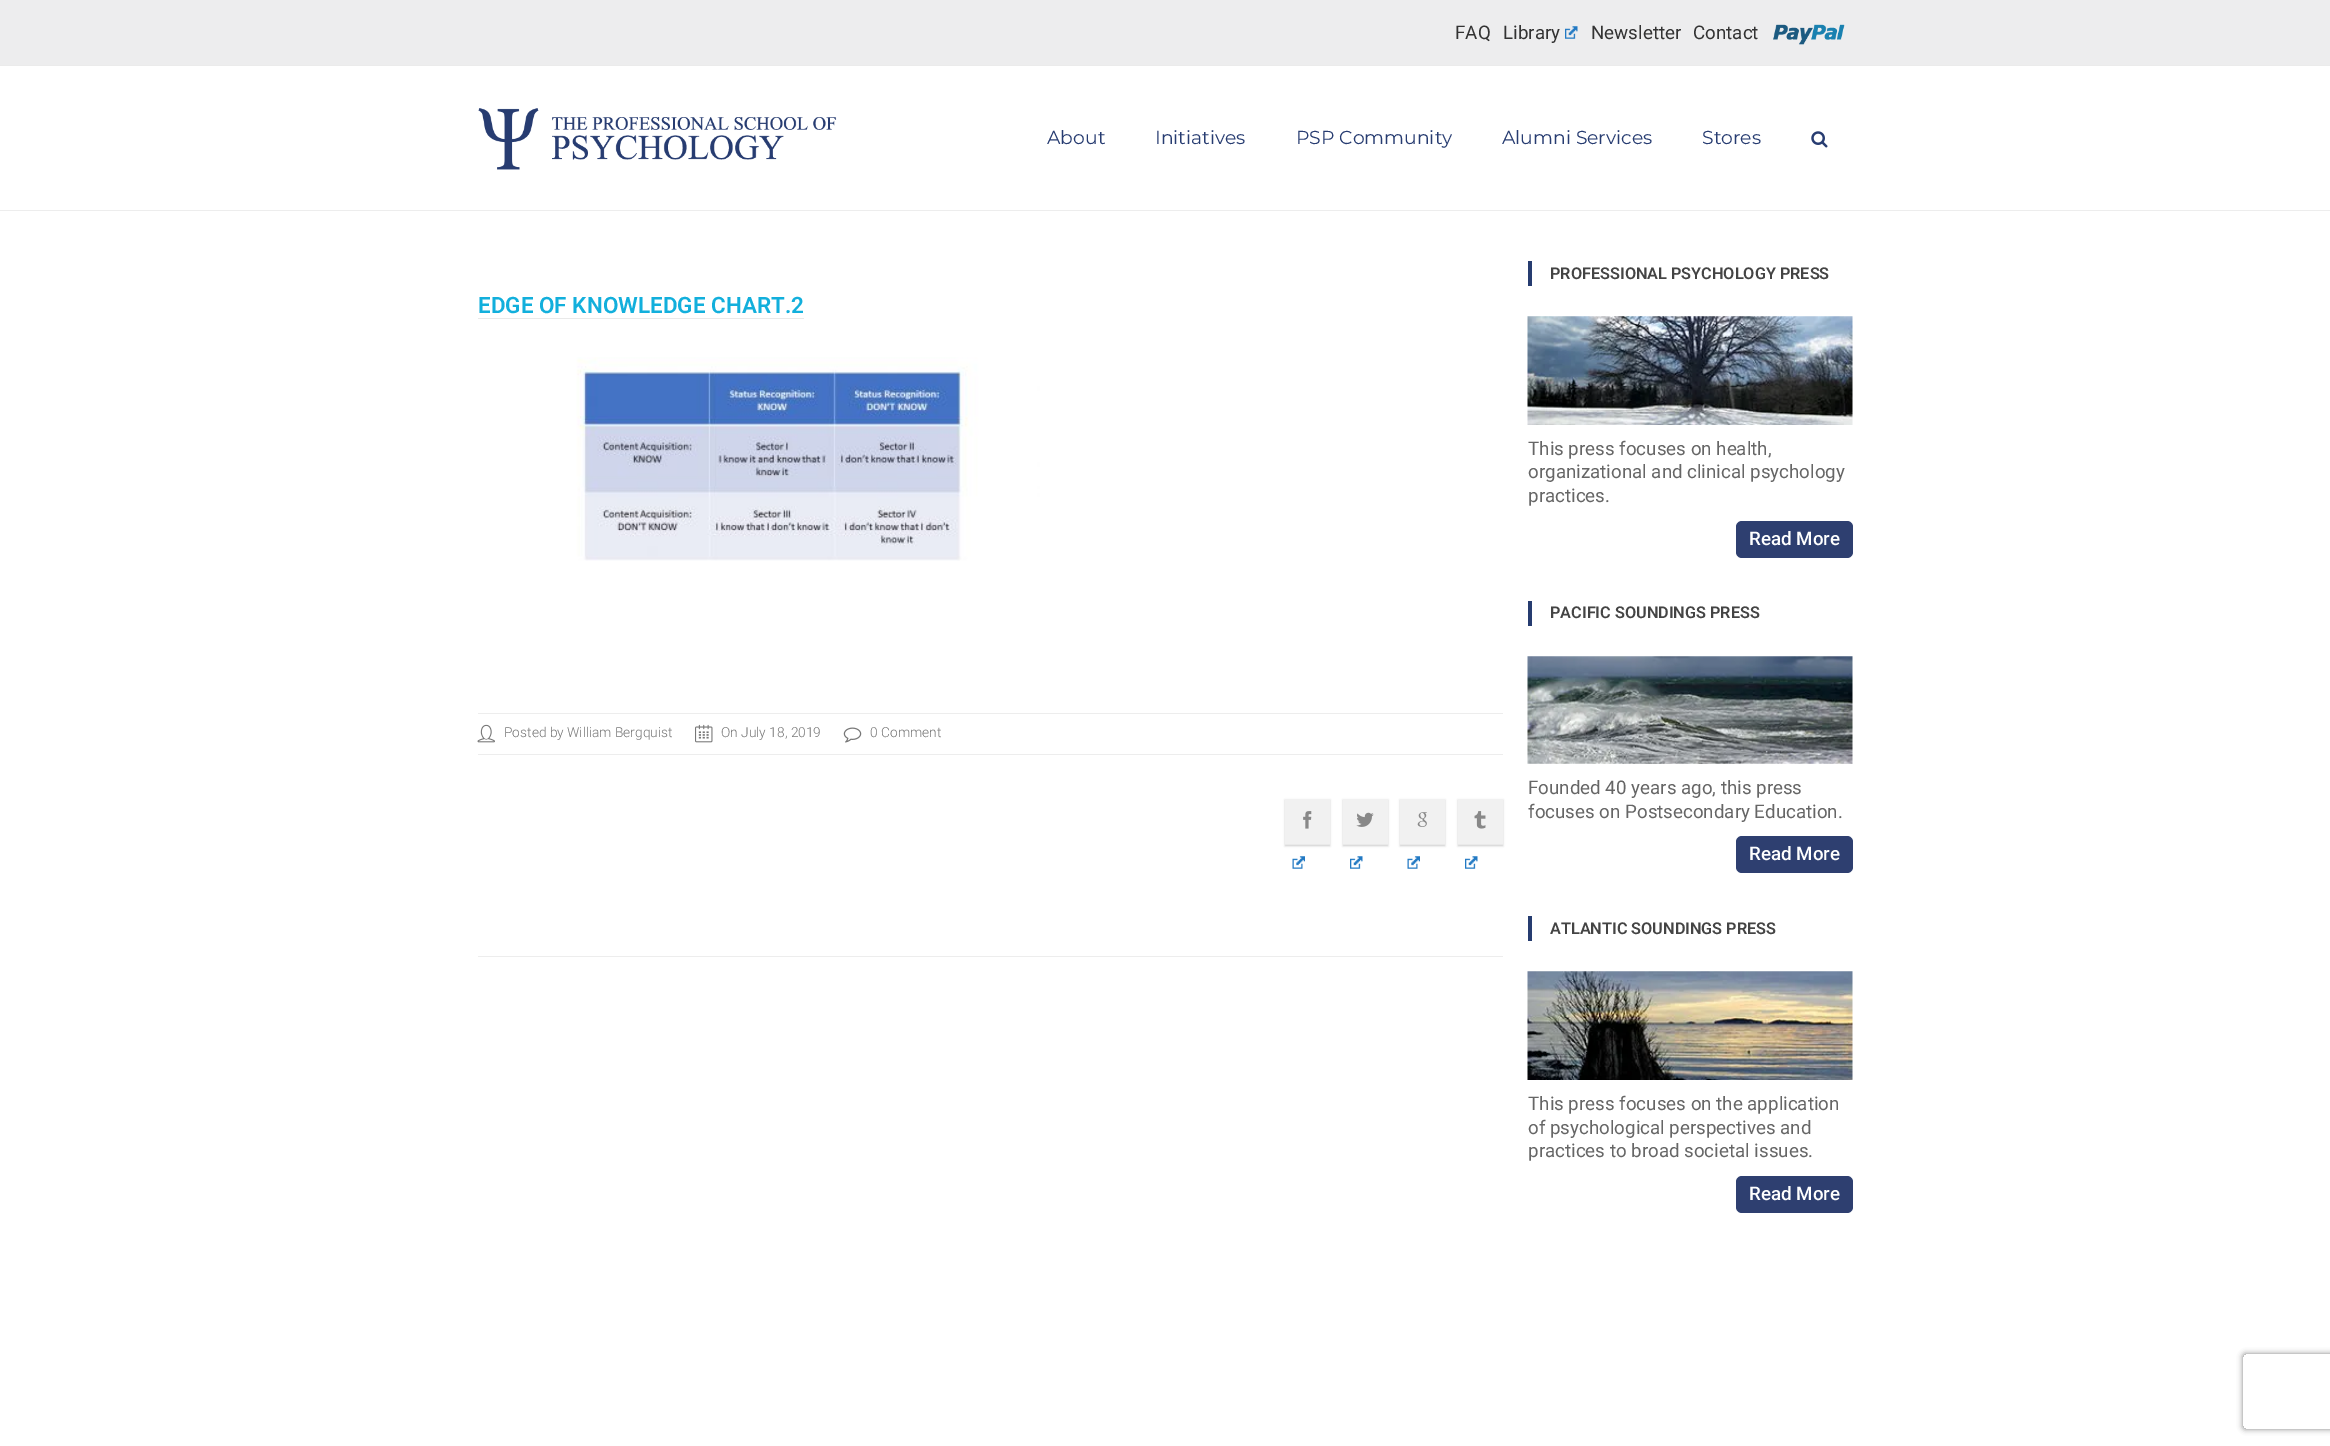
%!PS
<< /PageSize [2330 1446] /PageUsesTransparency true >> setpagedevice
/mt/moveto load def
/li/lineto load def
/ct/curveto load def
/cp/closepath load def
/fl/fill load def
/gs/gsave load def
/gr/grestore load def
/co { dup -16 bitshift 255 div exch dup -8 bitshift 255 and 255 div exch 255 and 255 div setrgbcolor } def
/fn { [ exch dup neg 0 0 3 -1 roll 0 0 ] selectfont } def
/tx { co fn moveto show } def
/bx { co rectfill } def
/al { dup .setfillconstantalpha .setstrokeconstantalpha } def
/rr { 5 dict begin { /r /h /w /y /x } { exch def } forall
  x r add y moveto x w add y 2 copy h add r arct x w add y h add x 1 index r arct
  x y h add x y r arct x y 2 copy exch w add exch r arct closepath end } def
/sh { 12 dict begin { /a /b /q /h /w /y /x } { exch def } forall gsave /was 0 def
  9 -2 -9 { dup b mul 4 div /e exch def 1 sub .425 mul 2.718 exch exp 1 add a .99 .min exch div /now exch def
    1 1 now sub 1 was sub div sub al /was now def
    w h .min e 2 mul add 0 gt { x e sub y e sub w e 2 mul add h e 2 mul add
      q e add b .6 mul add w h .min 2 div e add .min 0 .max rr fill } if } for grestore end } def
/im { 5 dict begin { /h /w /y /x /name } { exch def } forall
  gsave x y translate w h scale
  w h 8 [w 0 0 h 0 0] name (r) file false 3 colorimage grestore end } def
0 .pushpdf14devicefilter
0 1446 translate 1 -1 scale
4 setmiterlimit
0 0 2330 1446 16#FFFFFF bx
0 210 2330 1 16#EDEDED bx
0 0 2330 65 16#EDEDEE bx
0 65 2330 1 16#EBEBEB bx
(media/1.raw) 1565 26 13 13 im
(media/2.raw) 1773 24 72 21 im
(media/3.raw) 478 108 359 62 im
(media/4.raw) 1811 131 17 17 im
478 318 326 1 16#E9E9E9 bx
(media/5.raw) 478 357 562 204 im
478 713 1025 1 16#EDEDED bx
478 754 1025 1 16#EDEDED bx
(media/6.raw) 477 724 18 19 im
(media/7.raw) 695 724 18 19 im
(media/8.raw) 843 727 19 16 im
16#000000 co
1285 800 45 46 0 1 .2 sh
1285 799 45 45 16#F1F1F1 bx
1285 844 45 1 16#E9E9E9 bx
(media/9.raw) 1303 811 9 18 im
(media/10.raw) 1292 856 13 13 im
16#000000 co
1343 800 45 46 0 1 .2 sh
1343 799 45 45 16#F1F1F1 bx
1343 844 45 1 16#E9E9E9 bx
(media/11.raw) 1356 812 18 15 im
(media/12.raw) 1350 856 13 13 im
16#000000 co
1400 800 45 46 0 1 .2 sh
1400 799 45 45 16#F1F1F1 bx
1400 844 45 1 16#E9E9E9 bx
(media/13.raw) 1417 812 10 15 im
(media/10.raw) 1407 856 13 13 im
16#000000 co
1458 800 45 46 0 1 .2 sh
1458 799 45 45 16#F1F1F1 bx
1458 844 45 1 16#E9E9E9 bx
(media/14.raw) 1474 811 12 18 im
(media/12.raw) 1465 856 13 13 im
478 956 1025 1 16#EDEDED bx
1528 261 4 25 16#263C70 bx
(media/15.raw) 1527 316 326 109 im
16#2E3F70 co
1736 521 117 37 6 rr fl
1528 601 4 25 16#263C70 bx
(media/16.raw) 1527 656 326 108 im
16#2E3F70 co
1736 836 117 37 6 rr fl
1528 916 4 25 16#263C70 bx
(media/17.raw) 1527 971 326 109 im
16#2E3F70 co
1736 1176 117 37 6 rr fl
gs
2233 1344 mt 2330 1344 li 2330 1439 li 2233 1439 li cp 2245.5 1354 mt 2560.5 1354 li 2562 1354 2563 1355 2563 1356.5 ct 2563 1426.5 li 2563 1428 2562 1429 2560.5 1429 ct 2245.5 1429 li 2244 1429 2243 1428 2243 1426.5 ct 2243 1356.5 li 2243 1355 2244 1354 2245.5 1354 ct cp eoclip newpath
16#808080 co
2243 1354 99 75 2.5 3 1 sh
gr
(FAQ) 1455 39 /Roboto-Regular 18.75 16#333333 tx
(Library) 1503 39 /Roboto-Regular 18.75 16#333333 tx
(Newsletter) 1591 39 /Roboto-Regular 18.75 16#333333 tx
(Contact) 1693 39 /Roboto-Regular 18.75 16#333333 tx
(About) 1047 144 /Montserrat-Thin 18.75 16#273C71 tx
(Initiatives) 1155 144 /Montserrat-Thin 18.75 16#273C71 tx
(PSP Community) 1296 144 /Montserrat-Thin 18.75 16#273C71 tx
(Alumni Services) 1502 144 /Montserrat-Thin 18.75 16#273C71 tx
(Stores) 1702 144 /Montserrat-Thin 18.75 16#273C71 tx
(EDGE OF KNOWLEDGE CHART.2) 478 313 /Roboto-SemiBold 22.5 16#12AFDC tx
(Posted by William Bergquist) 504 737 /Roboto-Light 13.75 16#777777 tx
(On July 18, 2019) 721 737 /Roboto-Light 13.75 16#777777 tx
(0 Comment) 870 737 /Roboto-Light 13.75 16#777777 tx
(PROFESSIONAL PSYCHOLOGY PRESS) 1550 279 /Roboto-SemiBold 16.25 16#444444 tx
(This press focuses on health,) 1528 455 /Roboto-Regular 18.75 16#666666 tx
(organizational and clinical psychology) 1528 478 /Roboto-Regular 18.75 16#666666 tx
(practices.) 1528 502 /Roboto-Regular 18.75 16#666666 tx
(Read More) 1749 545 /Roboto-Medium 18.75 16#FFFFFF tx
(PACIFIC SOUNDINGS PRESS) 1550 618 /Roboto-SemiBold 16.25 16#444444 tx
(Founded 40 years ago, this press) 1528 794 /Roboto-Regular 18.75 16#666666 tx
(focuses on Postsecondary Education.) 1528 818 /Roboto-Regular 18.75 16#666666 tx
(Read More) 1749 860 /Roboto-Medium 18.75 16#FFFFFF tx
(ATLANTIC SOUNDINGS PRESS) 1550 934 /Roboto-SemiBold 16.25 16#444444 tx
(This press focuses on the application) 1528 1110 /Roboto-Regular 18.75 16#666666 tx
(of psychological perspectives and) 1528 1134 /Roboto-Regular 18.75 16#666666 tx
(practices to broad societal issues.) 1528 1157 /Roboto-Regular 18.75 16#666666 tx
(Read More) 1749 1200 /Roboto-Medium 18.75 16#FFFFFF tx
.poppdf14devicefilter showpage
